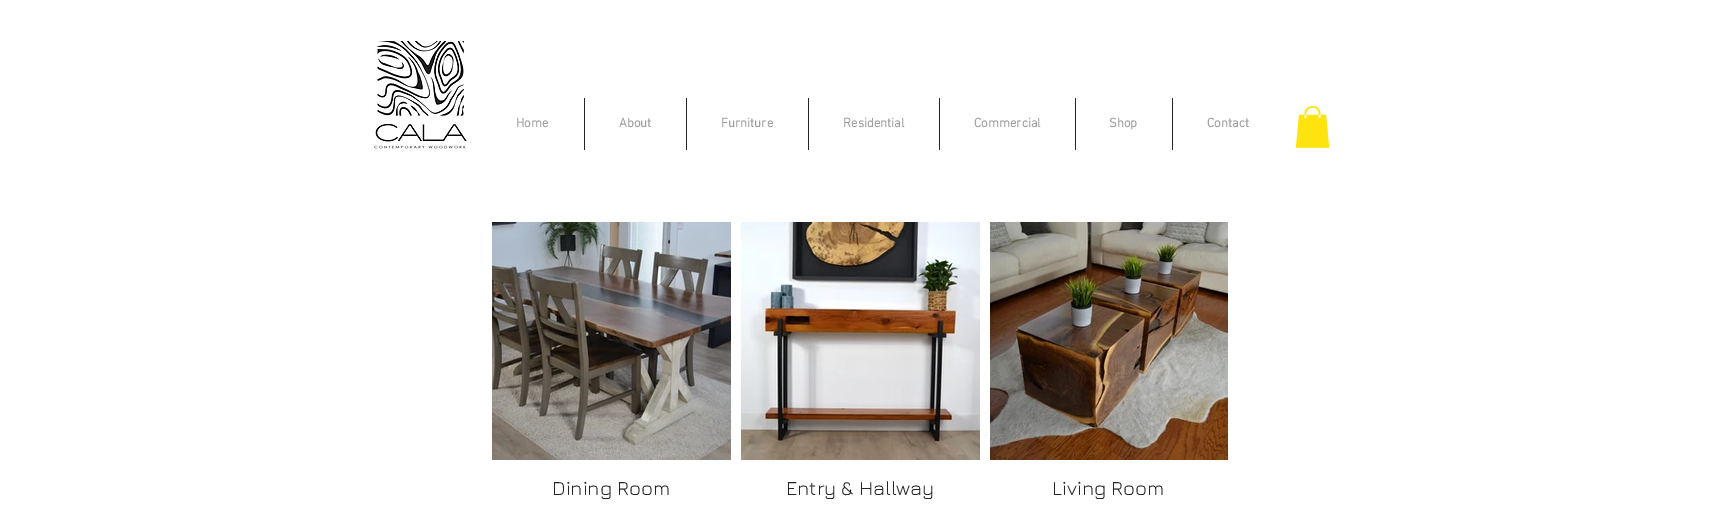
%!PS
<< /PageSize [1719 531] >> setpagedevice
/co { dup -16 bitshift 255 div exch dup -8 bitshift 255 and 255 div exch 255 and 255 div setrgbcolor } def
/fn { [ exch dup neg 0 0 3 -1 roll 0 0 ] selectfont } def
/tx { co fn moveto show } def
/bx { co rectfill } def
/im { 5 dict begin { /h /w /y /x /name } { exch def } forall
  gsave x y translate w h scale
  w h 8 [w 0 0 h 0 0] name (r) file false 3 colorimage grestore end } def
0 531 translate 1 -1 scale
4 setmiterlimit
0 0 1719 531 16#FFFFFF bx
(media/1.raw) 374 41 93 109 im
584 98 1 52 16#242424 bx
686 98 1 52 16#242424 bx
808 98 1 52 16#242424 bx
939 98 1 52 16#242424 bx
1075 98 1 52 16#242424 bx
1172 98 1 52 16#242424 bx
(media/2.raw) 1295 106 35 42 im
(media/3.raw) 492 222 239 238 im
(media/4.raw) 741 222 239 238 im
(media/5.raw) 990 222 238 238 im
(Home) 516 127 /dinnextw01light-Bold 13 16#9E9E9E tx
(About) 619 127 /dinnextw01light-Bold 13 16#9E9E9E tx
(Furniture) 721 127 /dinnextw01light-Bold 13 16#9E9E9E tx
(Residential) 843 127 /dinnextw01light-Bold 13 16#9E9E9E tx
(Commercial) 974 127 /dinnextw01light-Bold 13 16#9E9E9E tx
(Shop) 1109 127 /dinnextw01light-Bold 13 16#9E9E9E tx
(Contact) 1207 127 /dinnextw01light-Bold 13 16#9E9E9E tx
(Dining Room) 552 495 /Jura-Regular 20 16#242424 tx
(Entry & Hallway) 786 495 /Jura-Regular 20 16#242424 tx
(Living Room) 1052 495 /Jura-Regular 20 16#242424 tx
showpage
